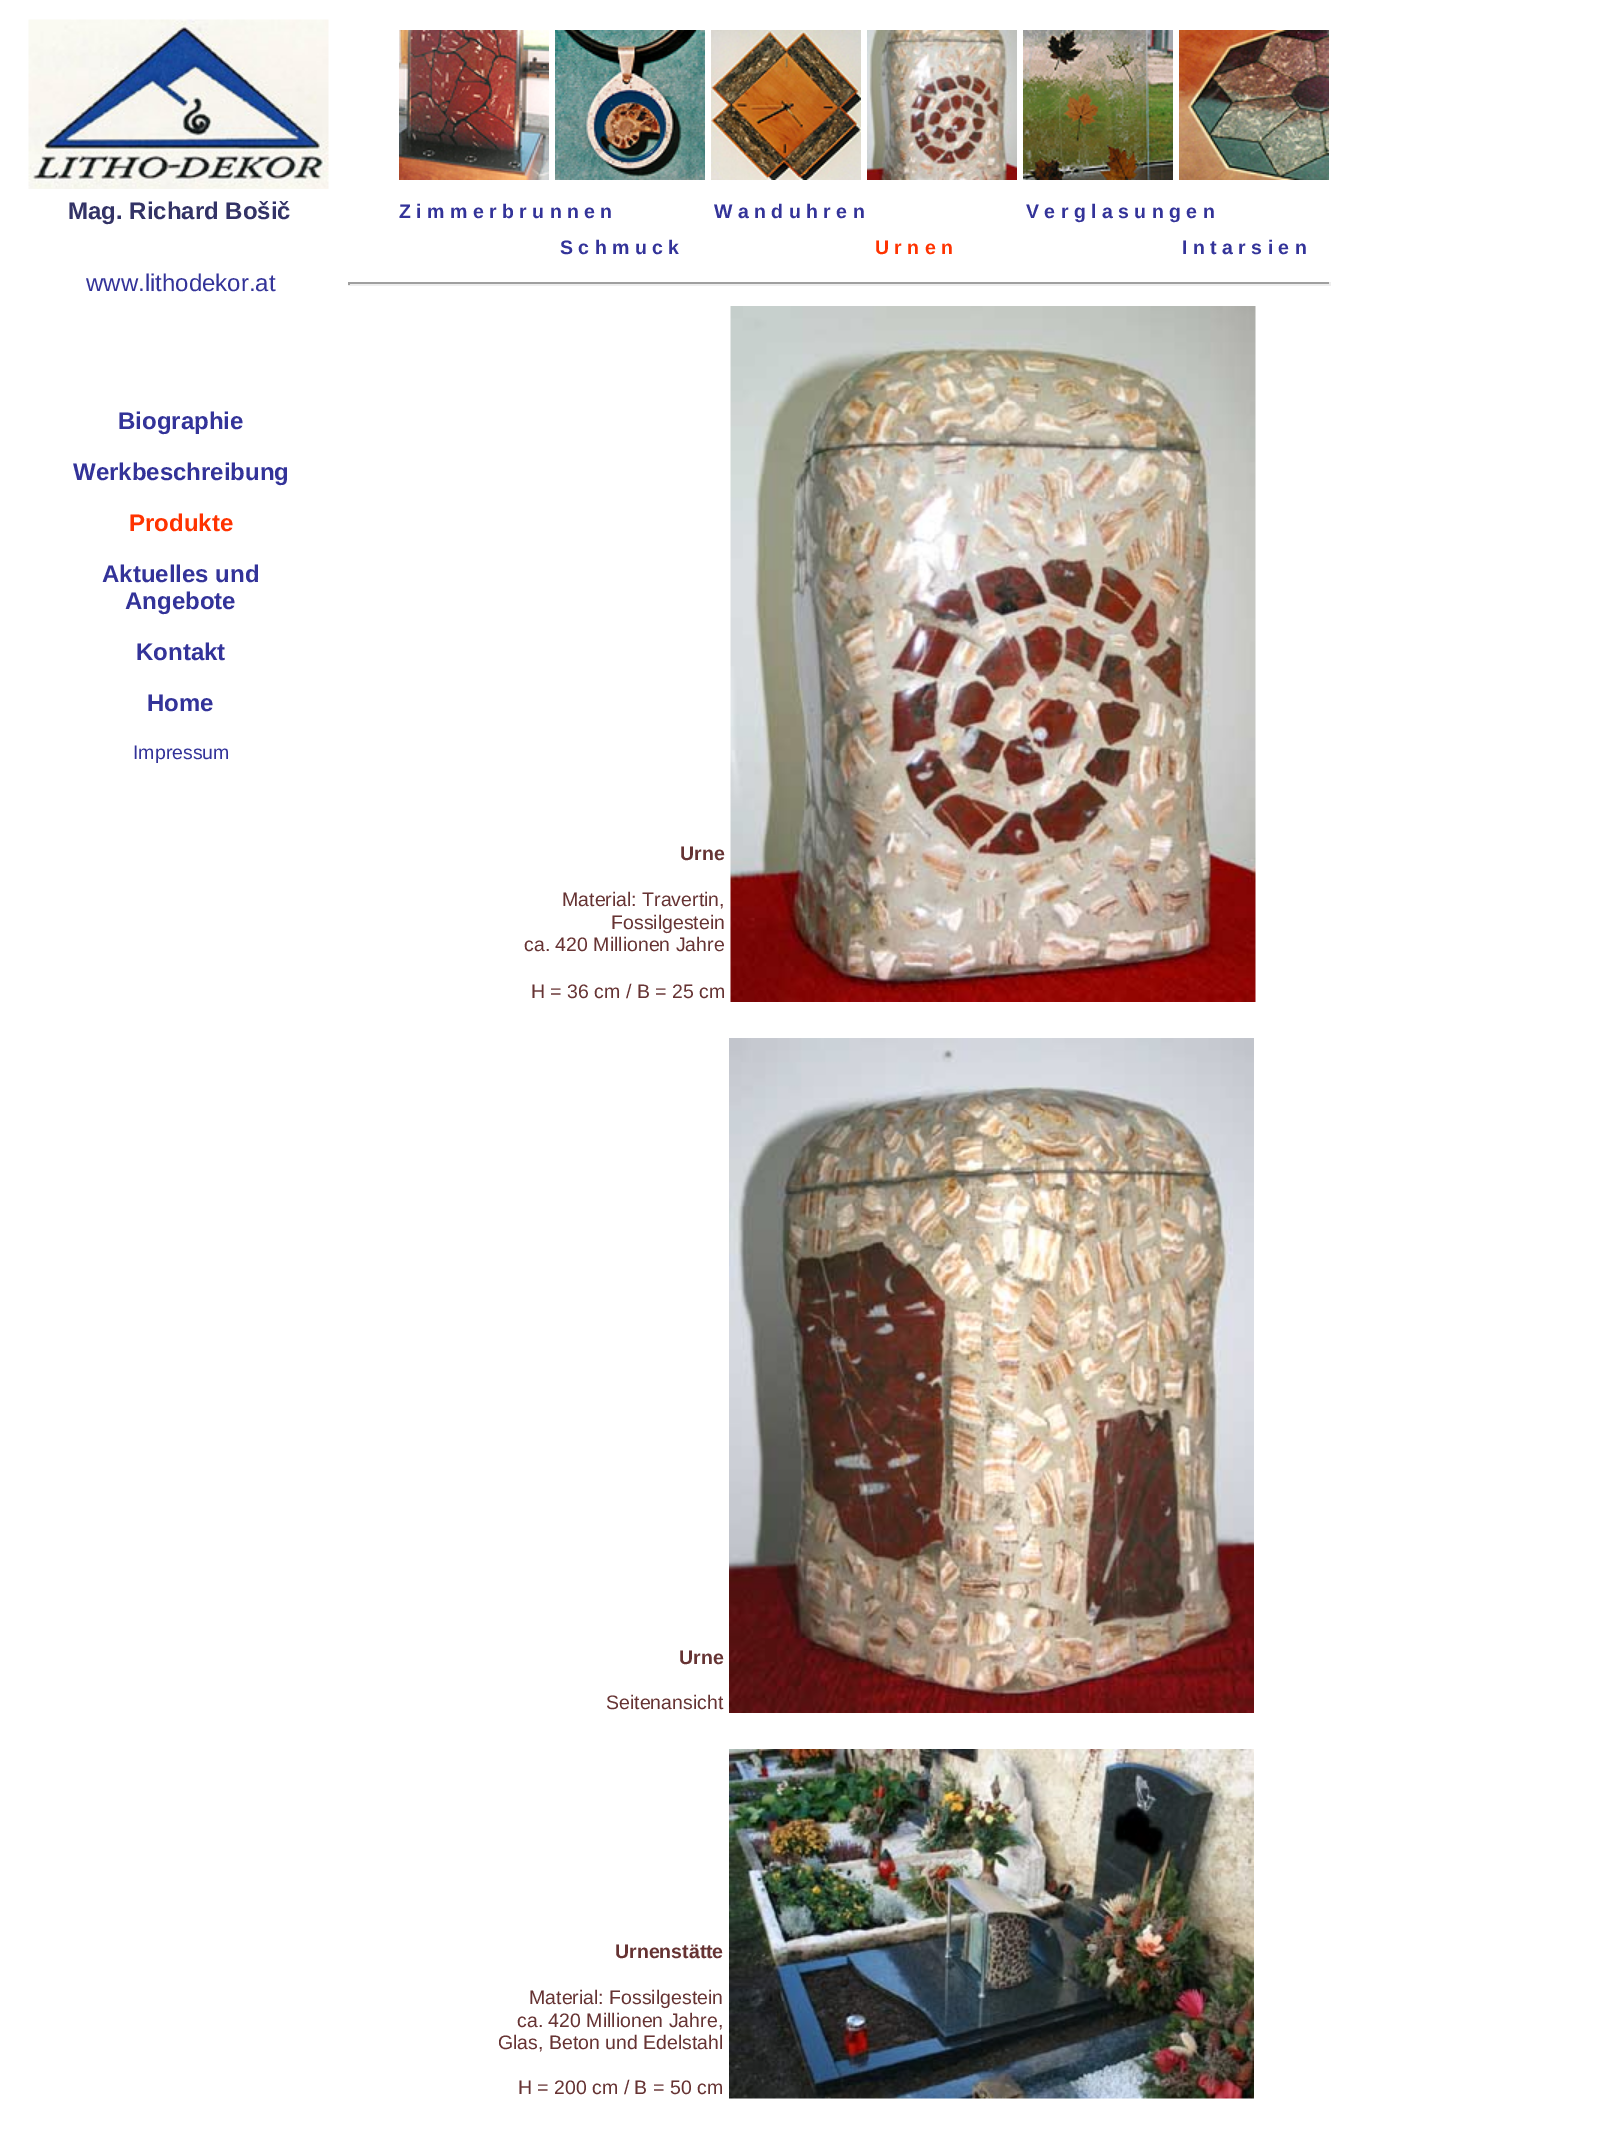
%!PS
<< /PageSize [1616 2132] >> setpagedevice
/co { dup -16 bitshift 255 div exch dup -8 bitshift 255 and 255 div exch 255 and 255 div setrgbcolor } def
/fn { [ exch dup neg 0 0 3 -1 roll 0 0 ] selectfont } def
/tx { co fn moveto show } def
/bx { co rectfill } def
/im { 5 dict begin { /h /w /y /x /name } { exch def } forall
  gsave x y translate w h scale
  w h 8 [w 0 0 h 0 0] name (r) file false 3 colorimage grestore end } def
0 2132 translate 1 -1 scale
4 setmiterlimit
0 0 1616 2132 16#FFFFFF bx
(media/1.raw) 28 19 301 170 im
(media/2.raw) 399 30 150 150 im
(media/3.raw) 555 30 150 150 im
(media/4.raw) 711 30 150 150 im
(media/5.raw) 867 30 150 150 im
(media/6.raw) 1023 30 150 150 im
(media/7.raw) 1179 30 150 150 im
348 282 983 2 16#9F9F9F bx
1329 282 2 3 16#EEEEEE bx
348 284 983 2 16#EEEEEE bx
348 282 2 3 16#9F9F9F bx
(media/8.raw) 730 306 526 696 im
(media/9.raw) 729 1038 525 675 im
(media/10.raw) 729 1749 525 350 im
(Mag. Richard Bošič) 68 219 /LiberationSans-Bold 24 16#333366 tx
(Z i m m e r b r u n n e n) 399 218 /LiberationSans-Bold 19.5 16#333399 tx
(W a n d u h r e n) 714 218 /LiberationSans-Bold 19.5 16#333399 tx
(V e r g l a s u n g e n) 1026 218 /LiberationSans-Bold 19.5 16#333399 tx
(S c h m u c k) 560 254 /LiberationSans-Bold 19.5 16#333399 tx
(U r n e n) 875 254 /LiberationSans-Bold 19.5 16#FF3300 tx
(I n t a r s i e n) 1182 254 /LiberationSans-Bold 19.5 16#333399 tx
(www.lithodekor.at) 86 291 /LiberationSans-Regular 24 16#333399 tx
(Biographie) 118 429 /LiberationSans-Bold 24 16#333399 tx
(Werkbeschreibung) 73 480 /LiberationSans-Bold 24 16#333399 tx
(Produkte) 129 531 /LiberationSans-Bold 24 16#FF3300 tx
(Aktuelles und) 102 582 /LiberationSans-Bold 24 16#333399 tx
(Angebote) 125 609 /LiberationSans-Bold 24 16#333399 tx
(Kontakt) 136 660 /LiberationSans-Bold 24 16#333399 tx
(Home) 147 711 /LiberationSans-Bold 24 16#333399 tx
(Impressum) 133 759 /LiberationSans-Regular 19.5 16#333399 tx
(Urne) 680 860 /LiberationSans-Bold 19.5 16#663333 tx
(Material: Travertin,) 562 906 /LiberationSans-Regular 19.5 16#663333 tx
(Fossilgestein) 611 929 /LiberationSans-Regular 19.5 16#663333 tx
(ca. 420 Millionen Jahre) 524 951 /LiberationSans-Regular 19.5 16#663333 tx
(H = 36 cm / B = 25 cm) 531 998 /LiberationSans-Regular 19.5 16#663333 tx
(Urne) 679 1664 /LiberationSans-Bold 19.5 16#663333 tx
(Seitenansicht) 606 1709 /LiberationSans-Regular 19.5 16#663333 tx
(Urnenstätte) 615 1958 /LiberationSans-Bold 19.5 16#663333 tx
(Material: Fossilgestein) 529 2004 /LiberationSans-Regular 19.5 16#663333 tx
(ca. 420 Millionen Jahre,) 517 2027 /LiberationSans-Regular 19.5 16#663333 tx
(Glas, Beton und Edelstahl) 498 2049 /LiberationSans-Regular 19.5 16#663333 tx
(H = 200 cm / B = 50 cm) 518 2094 /LiberationSans-Regular 19.5 16#663333 tx
showpage
